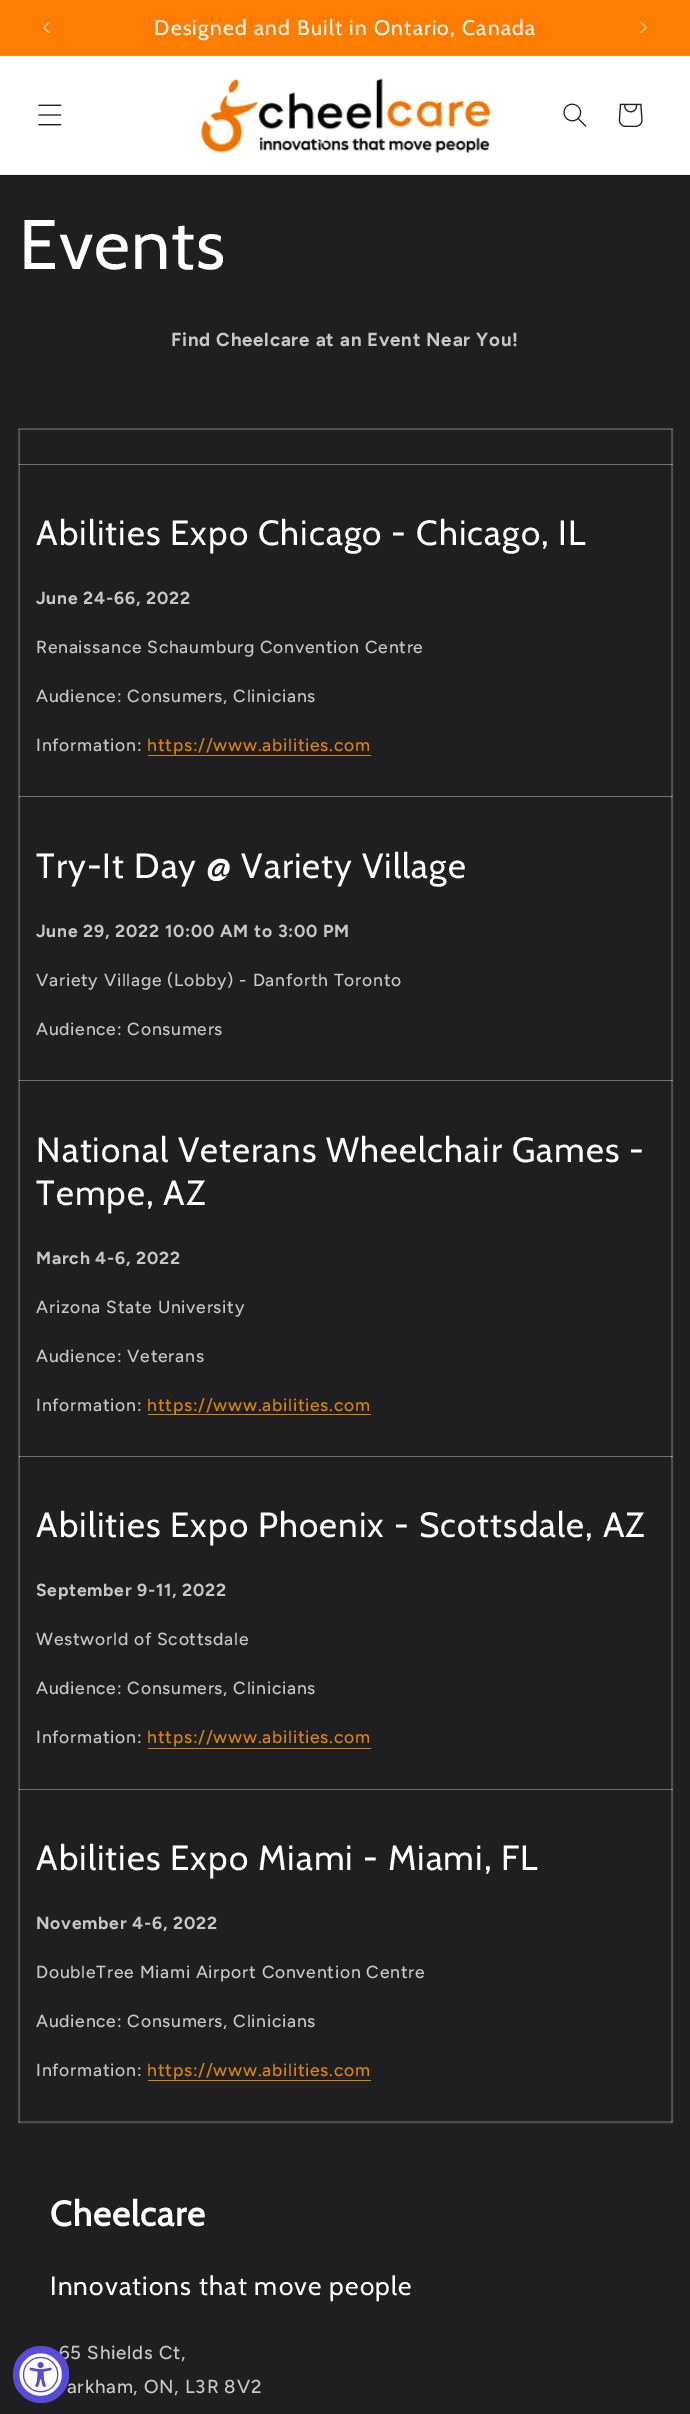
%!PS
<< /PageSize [690 2414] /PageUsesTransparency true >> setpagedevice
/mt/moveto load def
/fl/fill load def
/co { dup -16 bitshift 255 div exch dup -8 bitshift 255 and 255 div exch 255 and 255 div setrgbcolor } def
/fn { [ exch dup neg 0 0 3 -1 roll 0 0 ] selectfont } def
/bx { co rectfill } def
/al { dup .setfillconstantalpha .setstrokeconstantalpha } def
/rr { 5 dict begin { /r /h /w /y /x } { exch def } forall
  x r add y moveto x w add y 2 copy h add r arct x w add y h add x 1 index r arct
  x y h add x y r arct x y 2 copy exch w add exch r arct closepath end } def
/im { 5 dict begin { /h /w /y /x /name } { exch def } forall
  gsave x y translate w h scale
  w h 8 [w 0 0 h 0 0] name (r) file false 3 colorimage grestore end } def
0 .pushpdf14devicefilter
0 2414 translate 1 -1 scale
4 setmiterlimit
0 0 690 2414 16#1F1F21 bx
0 0 690 55 16#FC7D02 bx
0 55 690 1 16#FC8716 bx
(media/1.raw) 43 21 7 13 im
(media/2.raw) 640 21 7 13 im
0 56 690 118 16#FFFFFF bx
0 174 690 1 16#EDEDED bx
(media/3.raw) 38 104 24 22 im
(media/4.raw) 201 78 289 75 im
(media/5.raw) 563 103 24 24 im
(media/6.raw) 618 103 25 24 im
16#4C4C4D co
18.5 428.5 654 1694 rectstroke
0.2 al
19 429 654 1 16#FFFFFF bx
19 464 654 1 16#FFFFFF bx
19 796 654 1 16#FFFFFF bx
19 1080 654 1 16#FFFFFF bx
19 1456 654 1 16#FFFFFF bx
19 1789 654 1 16#FFFFFF bx
671 1789 1 334 16#FFFFFF bx
671 1456 1 334 16#FFFFFF bx
671 1080 1 378 16#FFFFFF bx
671 796 1 285 16#FFFFFF bx
671 464 1 334 16#FFFFFF bx
671 429 1 36 16#FFFFFF bx
19 2121 654 1 16#FFFFFF bx
19 1789 1 334 16#FFFFFF bx
19 1789 654 1 16#FFFFFF bx
19 1456 1 334 16#FFFFFF bx
19 1456 654 1 16#FFFFFF bx
19 1080 1 378 16#FFFFFF bx
19 1080 654 1 16#FFFFFF bx
19 796 1 285 16#FFFFFF bx
19 796 654 1 16#FFFFFF bx
19 464 1 334 16#FFFFFF bx
19 464 654 1 16#FFFFFF bx
19 429 1 36 16#FFFFFF bx
1 al
148 755 223 1 16#DB8207 bx
148 1414 223 1 16#DB8207 bx
148 1748 223 1 16#DB8207 bx
148 2080 223 1 16#DB8207 bx
/Cabin-Regular 21 fn
16#FFFFFF co
154 35 mt 1.25 0 (Designed and Built in Ontario, Canada) ashow
/Cabin-Regular 70 fn
19 269 mt 1.05 0 (Events) ashow
/Figtree-Bold 18.75 fn
16#C7C7C8 co
171 346 mt .75 0 (Find Cheelcare at an Event Near You!) ashow
/Cabin-Regular 35 fn
16#FFFFFF co
36 545 mt 1.05 0 (Abilities Expo Chicago - Chicago, IL) ashow
/Figtree-Bold 17.5 fn
16#C7C7C8 co
36 604 mt .75 0 (June 24-66, 2022) ashow
/Figtree-Medium 17.5 fn
36 653 mt .75 0 (Renaissance Schaumburg Convention Centre) ashow
36 702 mt .75 0 (Audience: Consumers, Clinicians) ashow
36 751 mt .75 0 (Information:) ashow
16#DB8207 co
147 751 mt .75 0 (https://www.abilities.com) ashow
/Cabin-Regular 35 fn
16#FFFFFF co
36 878 mt 1.05 0 (Try-It Day @ Variety Village) ashow
/Figtree-Bold 17.5 fn
16#C7C7C8 co
36 937 mt .75 0 (June 29, 2022 10:00 AM to 3:00 PM) ashow
/Figtree-Medium 17.5 fn
36 986 mt .75 0 (Variety Village \(Lobby\) - Danforth Toronto) ashow
36 1035 mt .75 0 (Audience: Consumers) ashow
/Cabin-Regular 35 fn
16#FFFFFF co
36 1162 mt 1.05 0 (National Veterans Wheelchair Games -) ashow
36 1205 mt 1.05 0 (Tempe, AZ) ashow
/Figtree-Bold 17.5 fn
16#C7C7C8 co
36 1264 mt .75 0 (March 4-6, 2022) ashow
/Figtree-Medium 17.5 fn
36 1313 mt .75 0 (Arizona State University) ashow
36 1362 mt .75 0 (Audience: Veterans) ashow
36 1411 mt .75 0 (Information:) ashow
16#DB8207 co
147 1411 mt .75 0 (https://www.abilities.com) ashow
/Cabin-Regular 35 fn
16#FFFFFF co
36 1537 mt 1.05 0 (Abilities Expo Phoenix - Scottsdale, AZ) ashow
/Figtree-Bold 17.5 fn
16#C7C7C8 co
36 1596 mt .75 0 (September 9-11, 2022) ashow
/Figtree-Medium 17.5 fn
36 1645 mt .75 0 (Westworld of Scottsdale) ashow
36 1694 mt .75 0 (Audience: Consumers, Clinicians) ashow
36 1743 mt .75 0 (Information:) ashow
16#DB8207 co
147 1743 mt .75 0 (https://www.abilities.com) ashow
/Cabin-Regular 35 fn
16#FFFFFF co
36 1870 mt 1.05 0 (Abilities Expo Miami - Miami, FL) ashow
/Figtree-Bold 17.5 fn
16#C7C7C8 co
36 1929 mt .75 0 (November 4-6, 2022) ashow
/Figtree-Medium 17.5 fn
36 1978 mt .75 0 (DoubleTree Miami Airport Convention Centre) ashow
36 2027 mt .75 0 (Audience: Consumers, Clinicians) ashow
36 2076 mt .75 0 (Information:) ashow
16#DB8207 co
147 2076 mt .75 0 (https://www.abilities.com) ashow
/Cabin-Bold 35 fn
16#FFFFFF co
50 2226 mt 1.05 0 (Cheelcare) ashow
/Cabin-Regular 26.25 fn
50 2295 mt 1.05 0 (Innovations that move people) ashow
/Figtree-Medium 18.75 fn
16#C7C7C8 co
59 2359 mt .75 0 (65 Shields Ct,) ashow
67 2393 mt .75 0 (arkham, ON, L3R 8V2) ashow
16#574CD5 co
13 2346 56 57 28 rr fl
(media/7.raw) 19 2353 43 43 im
.poppdf14devicefilter showpage
